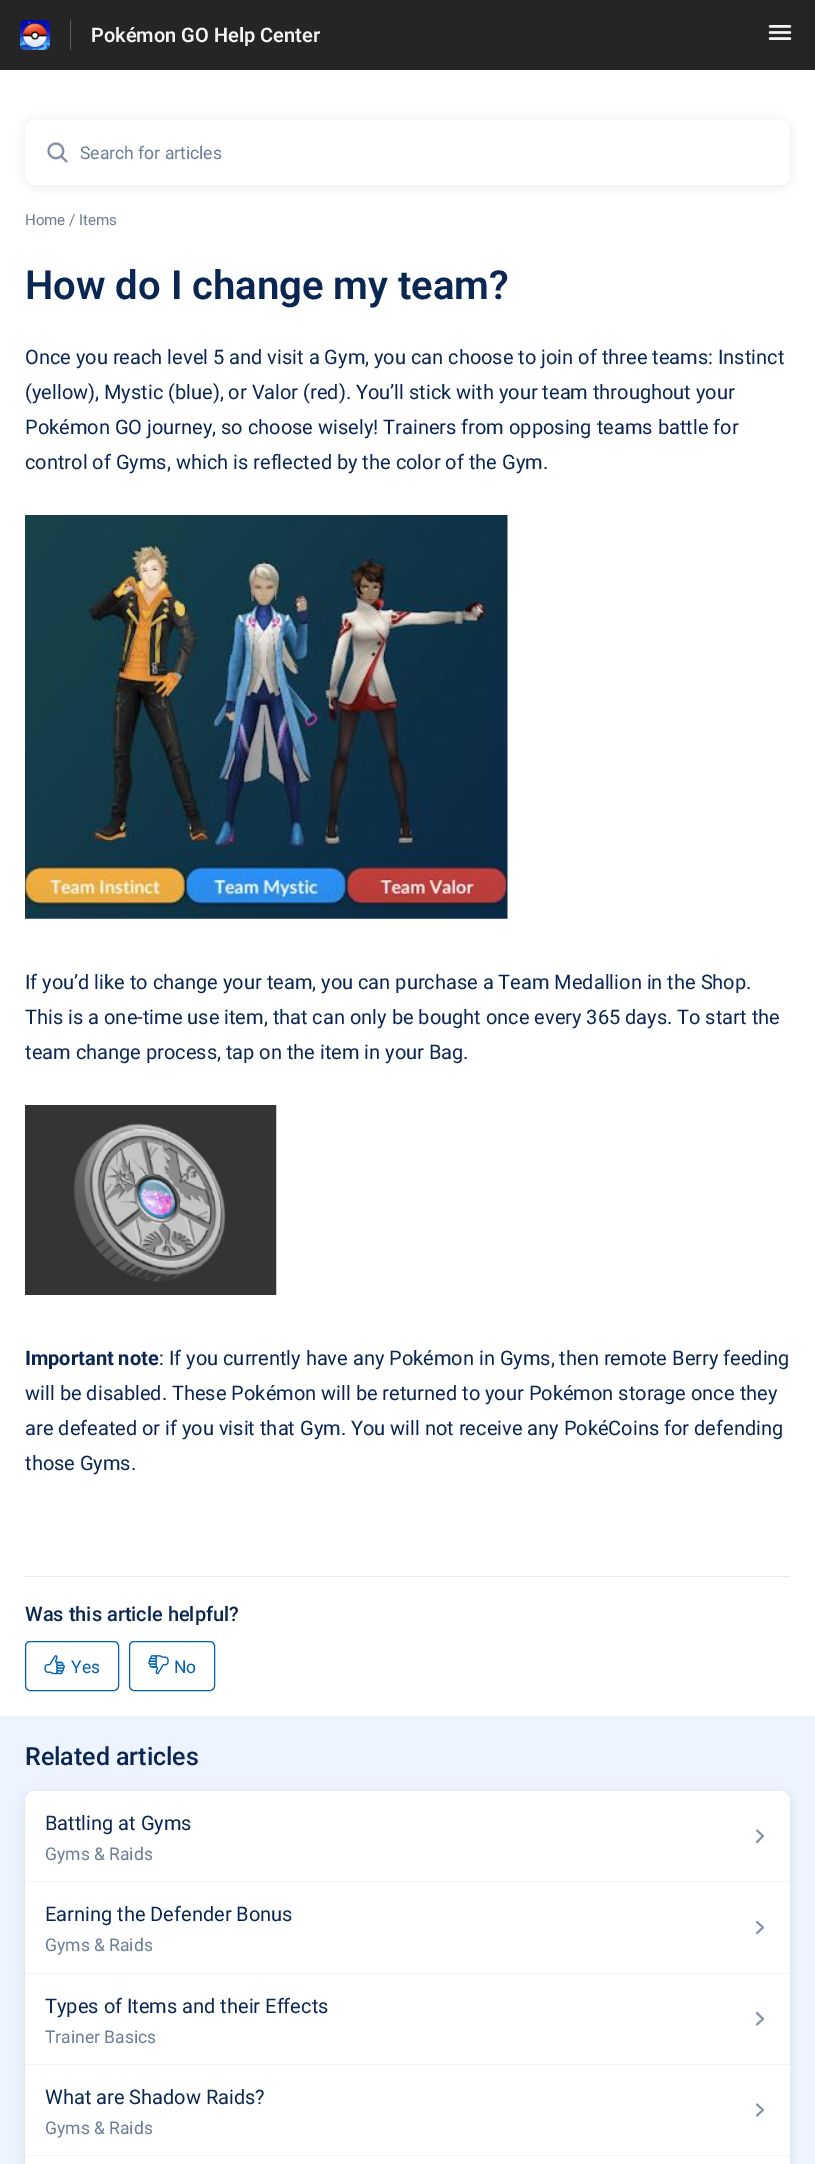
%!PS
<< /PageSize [815 2164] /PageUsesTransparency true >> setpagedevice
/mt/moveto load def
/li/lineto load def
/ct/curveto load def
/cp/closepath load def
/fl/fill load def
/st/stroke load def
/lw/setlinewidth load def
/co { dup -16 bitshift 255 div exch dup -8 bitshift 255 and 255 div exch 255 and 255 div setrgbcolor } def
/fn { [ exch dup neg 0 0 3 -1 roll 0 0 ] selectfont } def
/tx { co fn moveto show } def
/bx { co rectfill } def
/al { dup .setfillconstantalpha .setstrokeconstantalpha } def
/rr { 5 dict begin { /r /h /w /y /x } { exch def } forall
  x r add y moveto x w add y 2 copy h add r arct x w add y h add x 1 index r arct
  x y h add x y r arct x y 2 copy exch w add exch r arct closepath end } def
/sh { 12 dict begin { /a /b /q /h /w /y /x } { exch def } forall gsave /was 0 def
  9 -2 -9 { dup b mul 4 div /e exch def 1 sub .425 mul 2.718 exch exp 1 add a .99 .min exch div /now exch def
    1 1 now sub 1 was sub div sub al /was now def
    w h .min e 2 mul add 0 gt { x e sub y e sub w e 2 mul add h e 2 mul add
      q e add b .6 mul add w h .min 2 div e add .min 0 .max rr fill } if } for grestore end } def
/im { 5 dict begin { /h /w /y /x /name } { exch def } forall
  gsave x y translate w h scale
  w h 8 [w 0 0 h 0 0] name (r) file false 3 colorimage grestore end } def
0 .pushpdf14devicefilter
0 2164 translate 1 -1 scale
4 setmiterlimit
0 0 815 2164 16#EEF4FF bx
0 0 815 70 16#252525 bx
70 20 1 30 16#595959 bx
(media/1.raw) 20 20 30 30 im
(media/2.raw) 768 25 24 15 im
0 70 815 1646 16#FFFFFF bx
16#000000 co
25 121 765 65 10 5 .08 sh
16#FFFFFF co
25 120 765 65 10 rr fl
(media/3.raw) 47 142 21 21 im
25 1576 765 1 16#E7E9EE bx
(media/4.raw) 25 515 483 404 im
(media/5.raw) 25 1105 252 190 im
16#0061AF co
25.5 1641.5 93 49 4.5 rr st
(media/6.raw) 44 1655 21 20 im
129.5 1641.5 85 49 4.5 rr st
(media/7.raw) 148 1655 21 20 im
16#000000 co
25 1793 765 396 10 5 .08 sh
16#FFFFFF co
35 1791 mt 780 1791 li 785.5 1791 790 1795.5 790 1801 ct 790 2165 li 25 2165 li 25 1801 li 25 1795.5 29.5 1791 35 1791 ct cp fl
25 1881 765 1 16#F3F4F6 bx
16#8593A9 co
1.9 lw
1 setlinecap
1 setlinejoin
757 1830.5 mt 763 1836 li 757 1842 li st
25 1973 765 1 16#F3F4F6 bx
16#8593A9 co
757 1922 mt 763 1927.5 li 757 1933 li st
25 2064 765 1 16#F3F4F6 bx
16#8593A9 co
757 2013 mt 763 2019 li 757 2024.5 li st
25 2155 765 1 16#F3F4F6 bx
16#8593A9 co
757 2104.5 mt 763 2110 li 757 2115.5 li st
(Pokémon GO Help Center) 91 42 /Roboto-SemiBold 20 16#F3F4F4 tx
(Search for articles) 80 159 /Roboto-Regular 17.5 16#6C7D97 tx
(Home / Items) 25 225 /Roboto-Regular 15 16#6C7D97 tx
(How do I change my team?) 25 299 /Roboto-SemiBold 40 16#0A2652 tx
(Once you reach level 5 and visit a Gym, you can choose to join of three teams: Instinct) 25 364 /Roboto-Regular 20 16#0A2652 tx
(\(yellow\), Mystic \(blue\), or Valor \(red\). You’ll stick with your team throughout your) 25 399 /Roboto-Regular 20 16#0A2652 tx
(Pokémon GO journey, so choose wisely! Trainers from opposing teams battle for) 25 434 /Roboto-Regular 20 16#0A2652 tx
(control of Gyms, which is reflected by the color of the Gym.) 25 469 /Roboto-Regular 20 16#0A2652 tx
(If you’d like to change your team, you can purchase a Team Medallion in the Shop.) 25 989 /Roboto-Regular 20 16#0A2652 tx
(This is a one-time use item, that can only be bought once every 365 days. To start the) 25 1024 /Roboto-Regular 20 16#0A2652 tx
(team change process, tap on the item in your Bag.) 25 1059 /Roboto-Regular 20 16#0A2652 tx
(Important note) 25 1365 /Roboto-Bold 20 16#0A2652 tx
(: If you currently have any Pokémon in Gyms, then remote Berry feeding) 159 1365 /Roboto-Regular 20 16#0A2652 tx
(will be disabled. These Pokémon will be returned to your Pokémon storage once they) 25 1400 /Roboto-Regular 20 16#0A2652 tx
(are defeated or if you visit that Gym. You will not receive any PokéCoins for defending) 25 1435 /Roboto-Regular 20 16#0A2652 tx
(those Gyms.) 25 1470 /Roboto-Regular 20 16#0A2652 tx
(Was this article helpful?) 25 1621 /Roboto-Medium 20 16#0A2652 tx
(Yes) 71 1673 /Roboto-Regular 17.5 16#0061AF tx
(No) 174 1673 /Roboto-Regular 17.5 16#0061AF tx
(Related articles) 25 1765 /Roboto-Medium 25 16#0A2652 tx
(Battling at Gyms) 45 1830 /Roboto-Regular 20 16#0A2652 tx
(Gyms & Raids) 45 1860 /Roboto-Regular 17.5 16#6C7D97 tx
(Earning the Defender Bonus) 45 1921 /Roboto-Regular 20 16#0A2652 tx
(Gyms & Raids) 45 1951 /Roboto-Regular 17.5 16#6C7D97 tx
(Types of Items and their Effects) 45 2013 /Roboto-Regular 20 16#0A2652 tx
(Trainer Basics) 45 2043 /Roboto-Regular 17.5 16#6C7D97 tx
(What are Shadow Raids?) 45 2104 /Roboto-Regular 20 16#0A2652 tx
(Gyms & Raids) 45 2134 /Roboto-Regular 17.5 16#6C7D97 tx
.poppdf14devicefilter showpage
